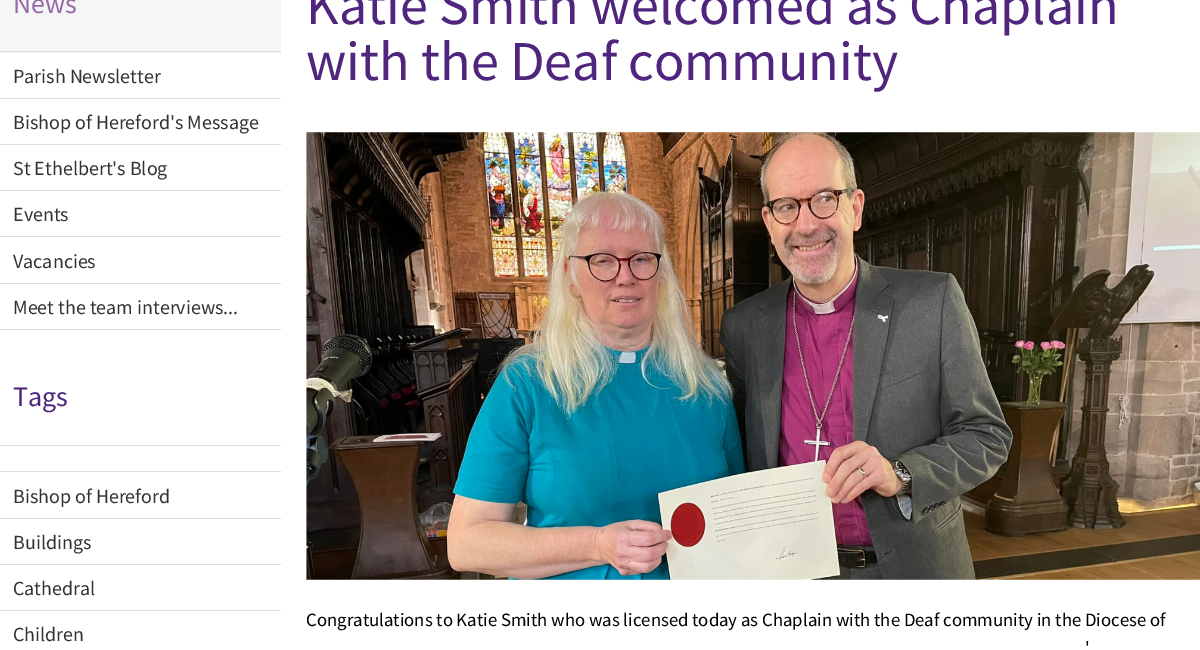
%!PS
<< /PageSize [1200 650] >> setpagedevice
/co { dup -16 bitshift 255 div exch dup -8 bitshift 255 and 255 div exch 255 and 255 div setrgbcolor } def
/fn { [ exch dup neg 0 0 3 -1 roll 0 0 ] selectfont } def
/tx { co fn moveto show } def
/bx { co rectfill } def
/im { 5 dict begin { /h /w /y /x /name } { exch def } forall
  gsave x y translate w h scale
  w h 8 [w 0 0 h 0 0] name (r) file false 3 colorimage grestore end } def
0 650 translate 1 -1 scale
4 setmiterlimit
0 0 1200 650 16#FFFFFF bx
0 0 281 53 16#F6F6F6 bx
0 51 281 1 16#DDDDDD bx
0 98 281 1 16#DDDDDD bx
0 144 281 1 16#DDDDDD bx
0 190 281 1 16#DDDDDD bx
0 236 281 1 16#DDDDDD bx
0 283 281 1 16#DDDDDD bx
0 329 281 1 16#DDDDDD bx
0 445 281 1 16#DDDDDD bx
0 471 281 1 16#DDDDDD bx
0 518 281 1 16#DDDDDD bx
0 564 281 1 16#DDDDDD bx
0 610 281 1 16#DDDDDD bx
(media/1.raw) 306 132 894 448 im
(News) 13 13 /SourceSansPro-Regular 28 16#9669A9 tx
(Parish Newsletter) 13 83 /SourceSansPro-Regular 20 16#333333 tx
(Bishop of Hereford's Message) 13 129 /SourceSansPro-Regular 20 16#333333 tx
(St Ethelbert's Blog) 13 175 /SourceSansPro-Regular 20 16#333333 tx
(Events) 13 221 /SourceSansPro-Regular 20 16#333333 tx
(Vacancies) 13 268 /SourceSansPro-Regular 20 16#333333 tx
(Meet the team interviews...) 13 314 /SourceSansPro-Regular 20 16#333333 tx
(Tags) 13 406 /SourceSansPro-Regular 28 16#4F257D tx
(Bishop of Hereford) 13 503 /SourceSansPro-Regular 20 16#333333 tx
(Buildings) 13 549 /SourceSansPro-Regular 20 16#333333 tx
(Cathedral) 13 595 /SourceSansPro-Regular 20 16#333333 tx
(Children) 13 641 /SourceSansPro-Regular 20 16#333333 tx
(Katie Smith welcomed as Chaplain) 306 24 /SourceSansPro-Regular 56.25 16#4F257D tx
(with the Deaf community) 306 80 /SourceSansPro-Regular 56.25 16#4F257D tx
(Congratulations to Katie Smith who was licensed today as Chaplain with the Deaf community in the Diocese of) 306 626 /SourceSansPro-Regular 18.75 16#000000 tx
(') 1085 654 /SourceSansPro-Regular 18.75 16#000000 tx
showpage
